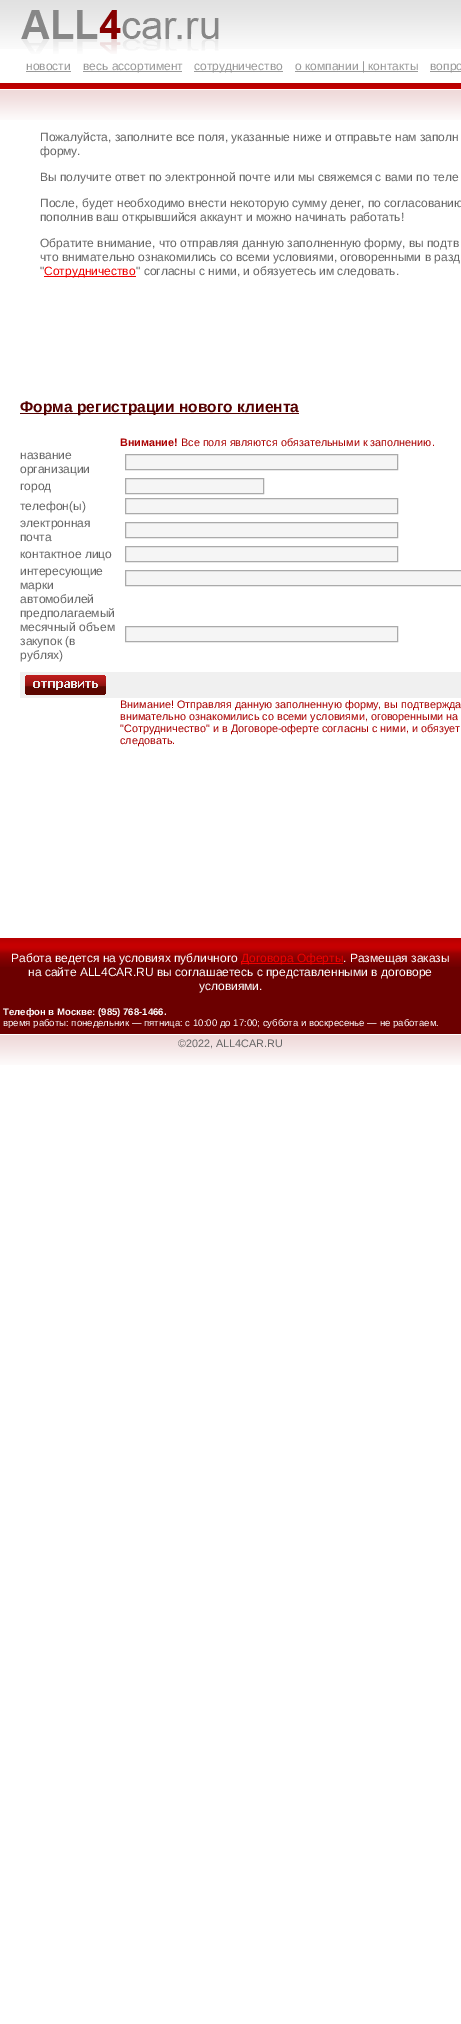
%!PS
<< /PageSize [461 2024] >> setpagedevice
/mt/moveto load def
/li/lineto load def
/cp/closepath load def
/fl/fill load def
/st/stroke load def
/gs/gsave load def
/gr/grestore load def
/co { dup -16 bitshift 255 div exch dup -8 bitshift 255 and 255 div exch 255 and 255 div setrgbcolor } def
/fn { [ exch dup neg 0 0 3 -1 roll 0 0 ] selectfont } def
/tx { co fn moveto show } def
/bx { co rectfill } def
/im { 5 dict begin { /h /w /y /x /name } { exch def } forall
  gsave x y translate w h scale
  w h 8 [w 0 0 h 0 0] name (r) file false 3 colorimage grestore end } def
0 2024 translate 1 -1 scale
4 setmiterlimit
0 0 461 2024 16#FFFFFF bx
(media/1.raw) 0 0 461 49 im
(media/2.raw) 21 10 198 29 im
(media/3.raw) 21 39 198 15 im
26 71 45 1 16#999999 bx
83 71 99 1 16#999999 bx
194 71 89 1 16#999999 bx
295 71 123 1 16#999999 bx
430 71 31 1 16#999999 bx
(media/4.raw) 0 83 461 6 im
(media/5.raw) 0 90 461 30 im
44 276 92 1 16#EE0000 bx
20 413 279 1 16#550000 bx
16#F5F5F5 co
125.5 454.5 mt 397.5 454.5 li 397.5 469.5 li 125.5 469.5 li cp gs fl gr
16#AAAAAA co
st
16#F5F5F5 co
125.5 478.5 mt 263.5 478.5 li 263.5 493.5 li 125.5 493.5 li cp gs fl gr
16#AAAAAA co
st
16#F5F5F5 co
125.5 498.5 mt 397.5 498.5 li 397.5 513.5 li 125.5 513.5 li cp gs fl gr
16#AAAAAA co
st
16#F5F5F5 co
125.5 522.5 mt 397.5 522.5 li 397.5 537.5 li 125.5 537.5 li cp gs fl gr
16#AAAAAA co
st
16#F5F5F5 co
125.5 546.5 mt 397.5 546.5 li 397.5 561.5 li 125.5 561.5 li cp gs fl gr
16#AAAAAA co
st
16#F5F5F5 co
125.5 570.5 mt 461.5 570.5 li 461.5 585.5 li 125.5 585.5 li cp gs fl gr
16#AAAAAA co
st
16#F5F5F5 co
125.5 626.5 mt 397.5 626.5 li 397.5 641.5 li 125.5 641.5 li cp gs fl gr
16#AAAAAA co
st
20 672 441 26 16#F0F0F0 bx
(media/6.raw) 25 675 81 20 im
0 967 461 67 16#6C0000 bx
(media/7.raw) 0 938 461 29 im
241 963 102 1 16#EE0000 bx
(media/5.raw) 0 1035 461 30 im
(новости) 26 70 /LiberationSans-Regular 12 16#999999 tx
(весь ассортимент) 83 70 /LiberationSans-Regular 12 16#999999 tx
(сотрудничество) 194 70 /LiberationSans-Regular 12 16#999999 tx
(о компании | контакты) 295 70 /LiberationSans-Regular 12 16#999999 tx
(вопро) 430 70 /LiberationSans-Regular 12 16#999999 tx
(Пожалуйста, заполните все поля, указанные ниже и отправьте нам заполн) 40 141 /LiberationSans-Regular 12 16#666666 tx
(форму.) 40 155 /LiberationSans-Regular 12 16#666666 tx
(Вы получите ответ по электронной почте или мы свяжемся с вами по теле) 40 181 /LiberationSans-Regular 12 16#666666 tx
(После, будет необходимо внести некоторую сумму денег, по согласованию) 40 207 /LiberationSans-Regular 12 16#666666 tx
(пополнив ваш открывшийся аккаунт и можно начинать работать!) 40 221 /LiberationSans-Regular 12 16#666666 tx
(Обратите внимание, что отправляя данную заполненную форму, вы подтв) 40 247 /LiberationSans-Regular 12 16#666666 tx
(что внимательно ознакомились со всеми условиями, оговоренными в разд) 40 261 /LiberationSans-Regular 12 16#666666 tx
(") 40 275 /LiberationSans-Regular 12 16#666666 tx
(Сотрудничество) 44 275 /LiberationSans-Regular 12 16#EE0000 tx
(" согласны с ними, и обязуетесь им следовать.) 136 275 /LiberationSans-Regular 12 16#666666 tx
(Форма регистрации нового клиента) 20 412 /LiberationSans-Bold 15.6 16#550000 tx
(Внимание!) 120 446 /LiberationSans-Bold 10.8 16#AA0000 tx
(Все поля являются обязательными к заполнению.) 181 446 /LiberationSans-Regular 10.8 16#AA0000 tx
(название) 20 459 /LiberationSans-Regular 12 16#666666 tx
(организации) 20 473 /LiberationSans-Regular 12 16#666666 tx
(город) 20 490 /LiberationSans-Regular 12 16#666666 tx
(телефон\(ы\)) 20 510 /LiberationSans-Regular 12 16#666666 tx
(электронная) 20 527 /LiberationSans-Regular 12 16#666666 tx
(почта) 20 541 /LiberationSans-Regular 12 16#666666 tx
(контактное лицо) 20 558 /LiberationSans-Regular 12 16#666666 tx
(интересующие) 20 575 /LiberationSans-Regular 12 16#666666 tx
(марки) 20 589 /LiberationSans-Regular 12 16#666666 tx
(автомобилей) 20 603 /LiberationSans-Regular 12 16#666666 tx
(предполагаемый) 20 617 /LiberationSans-Regular 12 16#666666 tx
(месячный объем) 20 631 /LiberationSans-Regular 12 16#666666 tx
(закупок \(в) 20 645 /LiberationSans-Regular 12 16#666666 tx
(рублях\)) 20 659 /LiberationSans-Regular 12 16#666666 tx
(Внимание! Отправляя данную заполненную форму, вы подтвержда) 120 708 /LiberationSans-Regular 10.8 16#AA0000 tx
(внимательно ознакомились со всеми условиями, оговоренными на) 120 720 /LiberationSans-Regular 10.8 16#AA0000 tx
("Сотрудничество" и в Договоре-оферте согласны с ними, и обязует) 120 732 /LiberationSans-Regular 10.8 16#AA0000 tx
(следовать.) 120 744 /LiberationSans-Regular 10.8 16#AA0000 tx
(Работа ведется на условиях публичного) 11 962 /LiberationSans-Regular 12 16#FFFFFF tx
(Договора Оферты) 241 962 /LiberationSans-Regular 12 16#EE0000 tx
(. Размещая заказы) 343 962 /LiberationSans-Regular 12 16#FFFFFF tx
(на сайте ALL4CAR.RU вы соглашаетесь c представленными в договоре) 28 976 /LiberationSans-Regular 12 16#FFFFFF tx
(условиями.) 199 990 /LiberationSans-Regular 12 16#FFFFFF tx
(Телефон в Москве: \(985\) 768-1466.) 3 1015 /LiberationSans-Bold 9.6 16#FFFFFF tx
(время работы: понедельник — пятница: с 10:00 до 17:00; суббота и воскресенье — не работаем.) 3 1026 /LiberationSans-Regular 9.6 16#FFFFFF tx
(©2022, ALL4CAR.RU) 178 1047 /LiberationSans-Regular 10.8 16#666666 tx
showpage
